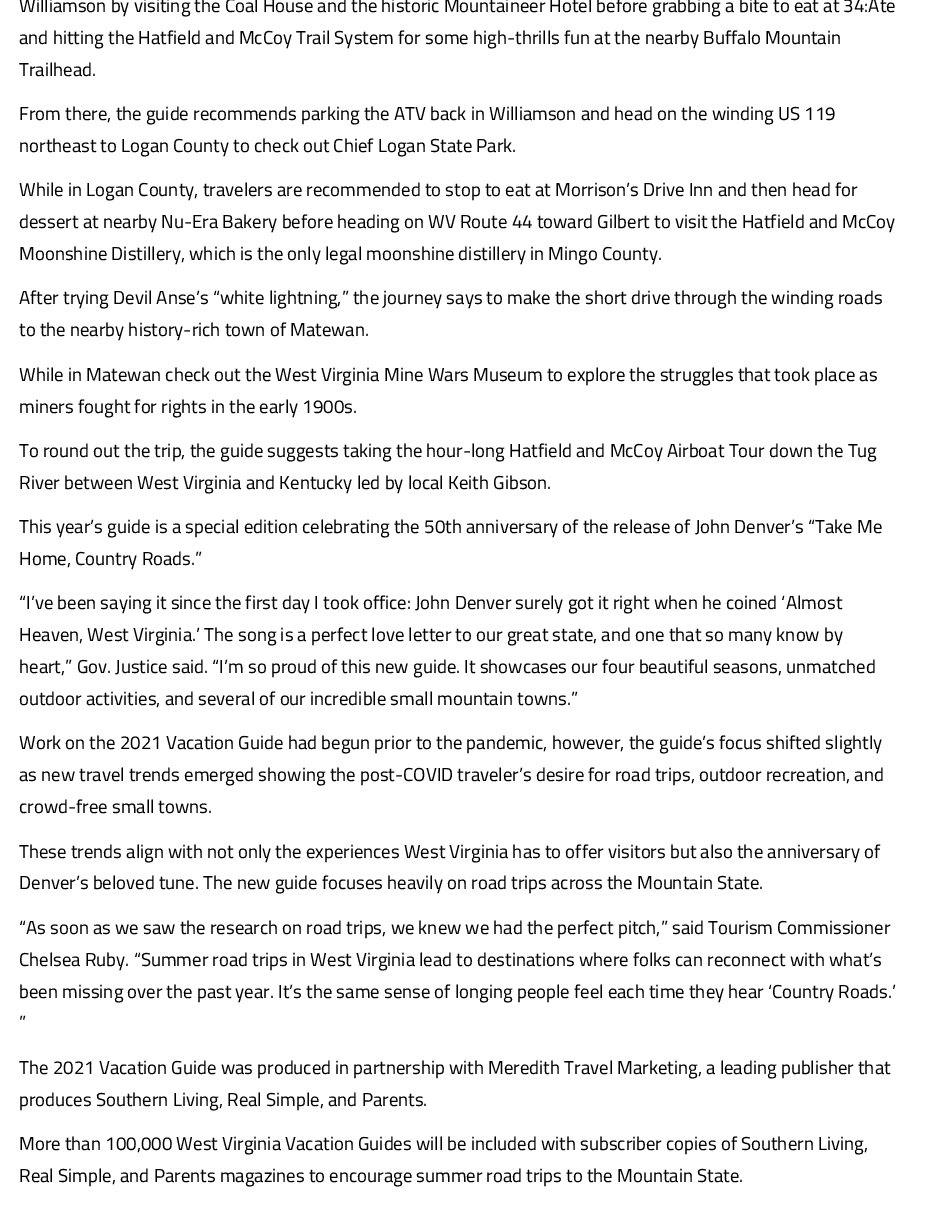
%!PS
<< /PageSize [926 1222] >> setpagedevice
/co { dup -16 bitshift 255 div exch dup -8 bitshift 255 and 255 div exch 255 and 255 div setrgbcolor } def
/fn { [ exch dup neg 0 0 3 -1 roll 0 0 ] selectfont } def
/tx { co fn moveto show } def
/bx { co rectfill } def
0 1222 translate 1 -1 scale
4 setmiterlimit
0 0 926 1222 16#FFFFFF bx
(Williamson by visiting the Coal House and the historic Mountaineer Hotel before grabbing a bite to eat at 34:Ate) 19 12 /Cairo-Regular 18.75 16#000000 tx
(and hitting the Hatfield and McCoy Trail System for some high-thrills fun at the nearby Buffalo Mountain) 19 44 /Cairo-Regular 18.75 16#000000 tx
(Trailhead.) 19 76 /Cairo-Regular 18.75 16#000000 tx
(From there, the guide recommends parking the ATV back in Williamson and head on the winding US 119) 19 120 /Cairo-Regular 18.75 16#000000 tx
(northeast to Logan County to check out Chief Logan State Park.) 19 152 /Cairo-Regular 18.75 16#000000 tx
(While in Logan County, travelers are recommended to stop to eat at Morrison’s Drive Inn and then head for) 19 196 /Cairo-Regular 18.75 16#000000 tx
(dessert at nearby Nu-Era Bakery before heading on WV Route 44 toward Gilbert to visit the Hatfield and McCoy) 19 228 /Cairo-Regular 18.75 16#000000 tx
(Moonshine Distillery, which is the only legal moonshine distillery in Mingo County.) 19 260 /Cairo-Regular 18.75 16#000000 tx
(After trying Devil Anse’s “white lightning,” the journey says to make the short drive through the winding roads) 19 304 /Cairo-Regular 18.75 16#000000 tx
(to the nearby history-rich town of Matewan.) 19 336 /Cairo-Regular 18.75 16#000000 tx
(While in Matewan check out the West Virginia Mine Wars Museum to explore the struggles that took place as) 19 381 /Cairo-Regular 18.75 16#000000 tx
(miners fought for rights in the early 1900s.) 19 413 /Cairo-Regular 18.75 16#000000 tx
(To round out the trip, the guide suggests taking the hour-long Hatfield and McCoy Airboat Tour down the Tug) 19 457 /Cairo-Regular 18.75 16#000000 tx
(River between West Virginia and Kentucky led by local Keith Gibson.) 19 489 /Cairo-Regular 18.75 16#000000 tx
(This year’s guide is a special edition celebrating the 50th anniversary of the release of John Denver’s “Take Me) 19 533 /Cairo-Regular 18.75 16#000000 tx
(Home, Country Roads.”) 19 565 /Cairo-Regular 18.75 16#000000 tx
(“I’ve been saying it since the first day I took office: John Denver surely got it right when he coined ‘Almost) 19 609 /Cairo-Regular 18.75 16#000000 tx
(Heaven, West Virginia.’ The song is a perfect love letter to our great state, and one that so many know by) 19 641 /Cairo-Regular 18.75 16#000000 tx
(heart,” Gov. Justice said. “I’m so proud of this new guide. It showcases our four beautiful seasons, unmatched) 19 673 /Cairo-Regular 18.75 16#000000 tx
(outdoor activities, and several of our incredible small mountain towns.”) 19 705 /Cairo-Regular 18.75 16#000000 tx
(Work on the 2021 Vacation Guide had begun prior to the pandemic, however, the guide’s focus shifted slightly) 19 749 /Cairo-Regular 18.75 16#000000 tx
(as new travel trends emerged showing the post-COVID traveler’s desire for road trips, outdoor recreation, and) 19 781 /Cairo-Regular 18.75 16#000000 tx
(crowd-free small towns.) 19 813 /Cairo-Regular 18.75 16#000000 tx
(These trends align with not only the experiences West Virginia has to offer visitors but also the anniversary of) 19 858 /Cairo-Regular 18.75 16#000000 tx
(Denver’s beloved tune. The new guide focuses heavily on road trips across the Mountain State.) 19 889 /Cairo-Regular 18.75 16#000000 tx
(“As soon as we saw the research on road trips, we knew we had the perfect pitch,” said Tourism Commissioner) 19 934 /Cairo-Regular 18.75 16#000000 tx
(Chelsea Ruby. “Summer road trips in West Virginia lead to destinations where folks can reconnect with what’s) 19 966 /Cairo-Regular 18.75 16#000000 tx
(been missing over the past year. It’s the same sense of longing people feel each time they hear ‘Country Roads.’) 19 998 /Cairo-Regular 18.75 16#000000 tx
(”) 19 1029 /Cairo-Regular 18.75 16#000000 tx
(The 2021 Vacation Guide was produced in partnership with Meredith Travel Marketing, a leading publisher that) 19 1074 /Cairo-Regular 18.75 16#000000 tx
(produces Southern Living, Real Simple, and Parents.) 19 1106 /Cairo-Regular 18.75 16#000000 tx
(More than 100,000 West Virginia Vacation Guides will be included with subscriber copies of Southern Living,) 19 1150 /Cairo-Regular 18.75 16#000000 tx
(Real Simple, and Parents magazines to encourage summer road trips to the Mountain State.) 19 1182 /Cairo-Regular 18.75 16#000000 tx
showpage
